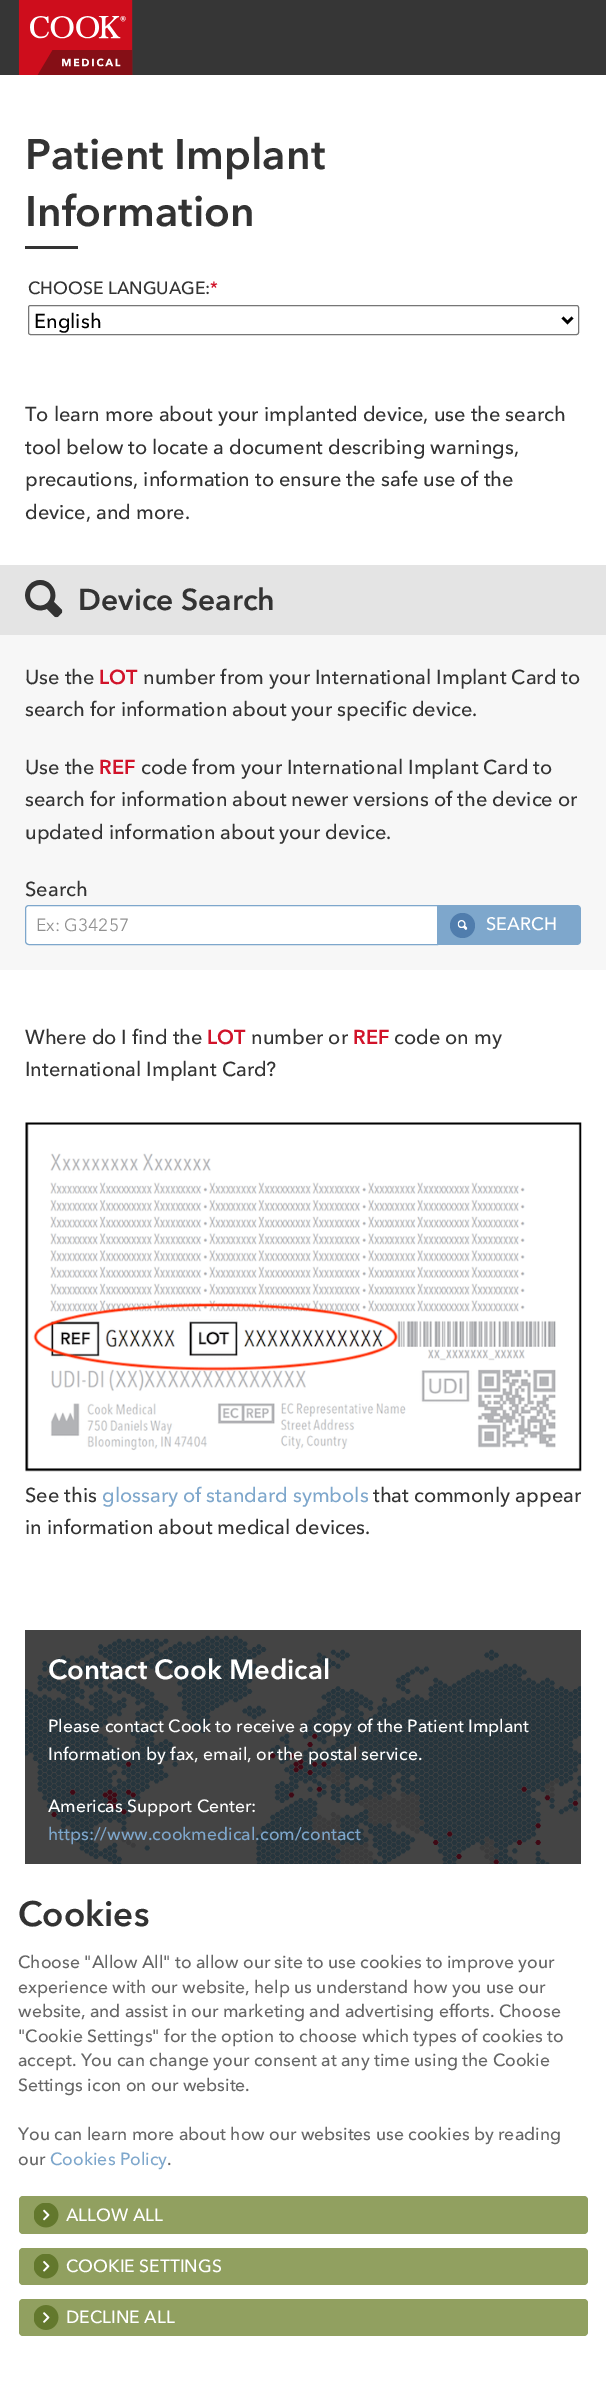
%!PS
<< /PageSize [606 2398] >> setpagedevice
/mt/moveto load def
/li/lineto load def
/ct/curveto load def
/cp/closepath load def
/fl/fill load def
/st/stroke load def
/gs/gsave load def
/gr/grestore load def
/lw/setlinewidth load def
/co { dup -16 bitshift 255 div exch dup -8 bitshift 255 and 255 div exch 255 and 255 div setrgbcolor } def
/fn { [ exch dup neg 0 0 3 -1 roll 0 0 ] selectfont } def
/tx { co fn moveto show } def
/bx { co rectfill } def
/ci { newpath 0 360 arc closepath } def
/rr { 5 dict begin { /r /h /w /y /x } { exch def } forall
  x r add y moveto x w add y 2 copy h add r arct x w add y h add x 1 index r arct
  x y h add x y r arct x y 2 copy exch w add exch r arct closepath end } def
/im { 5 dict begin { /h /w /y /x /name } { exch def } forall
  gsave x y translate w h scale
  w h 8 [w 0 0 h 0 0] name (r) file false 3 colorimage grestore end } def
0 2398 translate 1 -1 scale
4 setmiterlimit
0 0 606 2398 16#FFFFFF bx
0 0 606 75 16#363636 bx
(media/1.raw) 18 0 115 75 im
25 246 53 3 16#333333 bx
16#767676 co
28.5 305.5 550 29 2 rr st
16#000000 co
2.5 lw
562.5 317.5 mt 567.5 322.5 li 572.5 317.5 li st
0 565 606 70 16#E4E4E4 bx
(media/2.raw) 25 580 38 38 im
0 635 606 335 16#F7F7F7 bx
16#FFFFFF co
29 905.5 mt 437.5 905.5 li 437.5 944.5 li 29 944.5 li 27 944.5 25.5 943 25.5 941 ct 25.5 909 li 25.5 907 27 905.5 29 905.5 ct cp gs fl gr
16#7EA7CC co
1 lw
st
438 905 mt 577 905 li 579 905 581 907 581 909 ct 581 941 li 581 943 579 945 577 945 ct 438 945 li cp fl
16#507DAD co
462.5 925.5 12.5 ci fl
(media/3.raw) 457 920 11 10 im
(media/4.raw) 25 1122 557 350 im
(media/5.raw) 25 1630 556 234 im
16#91A060 co
19 2196 569 38 4 rr fl
(media/6.raw) 34 2203 25 25 im
19 2248 569 37 4 rr fl
(media/7.raw) 34 2254 25 25 im
19 2299 569 37 4 rr fl
(media/8.raw) 34 2305 25 25 im
(Patient Implant) 25 169 /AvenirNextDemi-Bold 42.5 16#333333 tx
(Information) 25 226 /AvenirNextDemi-Bold 42.5 16#333333 tx
(CHOOSE LANGUAGE:) 28 294 /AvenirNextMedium-Medium 17.5 16#333333 tx
(*) 210 294 /AvenirNextMedium-Medium 17.5 16#D1132A tx
(English) 34 328 /AvenirNextMedium-Medium 20 16#000000 tx
(To learn more about your implanted device, use the search) 25 421 /AvenirNextMedium-Medium 20 16#333333 tx
(tool below to locate a document describing warnings,) 25 454 /AvenirNextMedium-Medium 20 16#333333 tx
(precautions, information to ensure the safe use of the) 25 486 /AvenirNextMedium-Medium 20 16#333333 tx
(device, and more.) 25 519 /AvenirNextMedium-Medium 20 16#333333 tx
(Device Search) 78 610 /AvenirNextDemi-Bold 30 16#333333 tx
(Use the) 25 684 /AvenirNextMedium-Medium 20 16#333333 tx
(LOT) 99 684 /AvenirNextDemi-Bold 20 16#D1132A tx
(number from your International Implant Card to) 143 684 /AvenirNextMedium-Medium 20 16#333333 tx
(search for information about your specific device.) 25 716 /AvenirNextMedium-Medium 20 16#333333 tx
(Use the) 25 774 /AvenirNextMedium-Medium 20 16#333333 tx
(REF) 99 774 /AvenirNextDemi-Bold 20 16#D1132A tx
(code from your International Implant Card to) 141 774 /AvenirNextMedium-Medium 20 16#333333 tx
(search for information about newer versions of the device or) 25 806 /AvenirNextMedium-Medium 20 16#333333 tx
(updated information about your device.) 25 839 /AvenirNextMedium-Medium 20 16#333333 tx
(Search) 25 896 /AvenirNextMedium-Medium 20 16#333333 tx
(Ex: G34257) 36 931 /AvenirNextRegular-Regular 17.5 16#919191 tx
(SEARCH) 486 930 /AvenirNextMedium-Medium 18 16#FFFFFF tx
(Where do I find the) 25 1044 /AvenirNextMedium-Medium 20 16#333333 tx
(LOT) 207 1044 /AvenirNextDemi-Bold 20 16#D1132A tx
(number or) 251 1044 /AvenirNextMedium-Medium 20 16#333333 tx
(REF) 353 1044 /AvenirNextDemi-Bold 20 16#D1132A tx
(code on my) 394 1044 /AvenirNextMedium-Medium 20 16#333333 tx
(International Implant Card?) 25 1076 /AvenirNextMedium-Medium 20 16#333333 tx
(See this) 25 1502 /AvenirNextMedium-Medium 20 16#333333 tx
(glossary of standard symbols) 102 1502 /AvenirNextMedium-Medium 20 16#7EA7CC tx
(that commonly appear) 373 1502 /AvenirNextMedium-Medium 20 16#333333 tx
(in information about medical devices.) 25 1534 /AvenirNextMedium-Medium 20 16#333333 tx
(Contact Cook Medical) 48 1679 /AvenirNextDemi-Bold 27.5 16#FFFFFF tx
(Please contact Cook to receive a copy of the Patient Implant) 48 1732 /AvenirNextMedium-Medium 17.5 16#FFFFFF tx
(Information by fax, email, or the postal service.) 48 1760 /AvenirNextMedium-Medium 17.5 16#FFFFFF tx
(Americas Support Center:) 48 1812 /AvenirNextMedium-Medium 17.5 16#FFFFFF tx
(https://www.cookmedical.com/contact) 48 1840 /AvenirNextMedium-Medium 17.5 16#7EA7CC tx
(Cookies) 18 1926 /AvenirNextDemi-Bold 35 16#333333 tx
(Choose "Allow All" to allow our site to use cookies to improve your) 18 1968 /AvenirNextMedium-Medium 17.5 16#666666 tx
(experience with our website, help us understand how you use our) 18 1993 /AvenirNextMedium-Medium 17.5 16#666666 tx
(website, and assist in our marketing and advertising efforts. Choose) 18 2017 /AvenirNextMedium-Medium 17.5 16#666666 tx
("Cookie Settings" for the option to choose which types of cookies to) 18 2042 /AvenirNextMedium-Medium 17.5 16#666666 tx
(accept. You can change your consent at any time using the Cookie) 18 2066 /AvenirNextMedium-Medium 17.5 16#666666 tx
(Settings icon on our website.) 18 2091 /AvenirNextMedium-Medium 17.5 16#666666 tx
(You can learn more about how our websites use cookies by reading) 18 2140 /AvenirNextMedium-Medium 17.5 16#666666 tx
(our) 18 2165 /AvenirNextMedium-Medium 17.5 16#666666 tx
(Cookies Policy) 50 2165 /AvenirNextMedium-Medium 17.5 16#7EA7CC tx
(.) 167 2165 /AvenirNextMedium-Medium 17.5 16#666666 tx
(ALLOW ALL) 66 2221 /AvenirNextMedium-Medium 17.5 16#FFFFFF tx
(COOKIE SETTINGS) 66 2272 /AvenirNextMedium-Medium 17.5 16#FFFFFF tx
(DECLINE ALL) 66 2323 /AvenirNextMedium-Medium 17.5 16#FFFFFF tx
showpage
